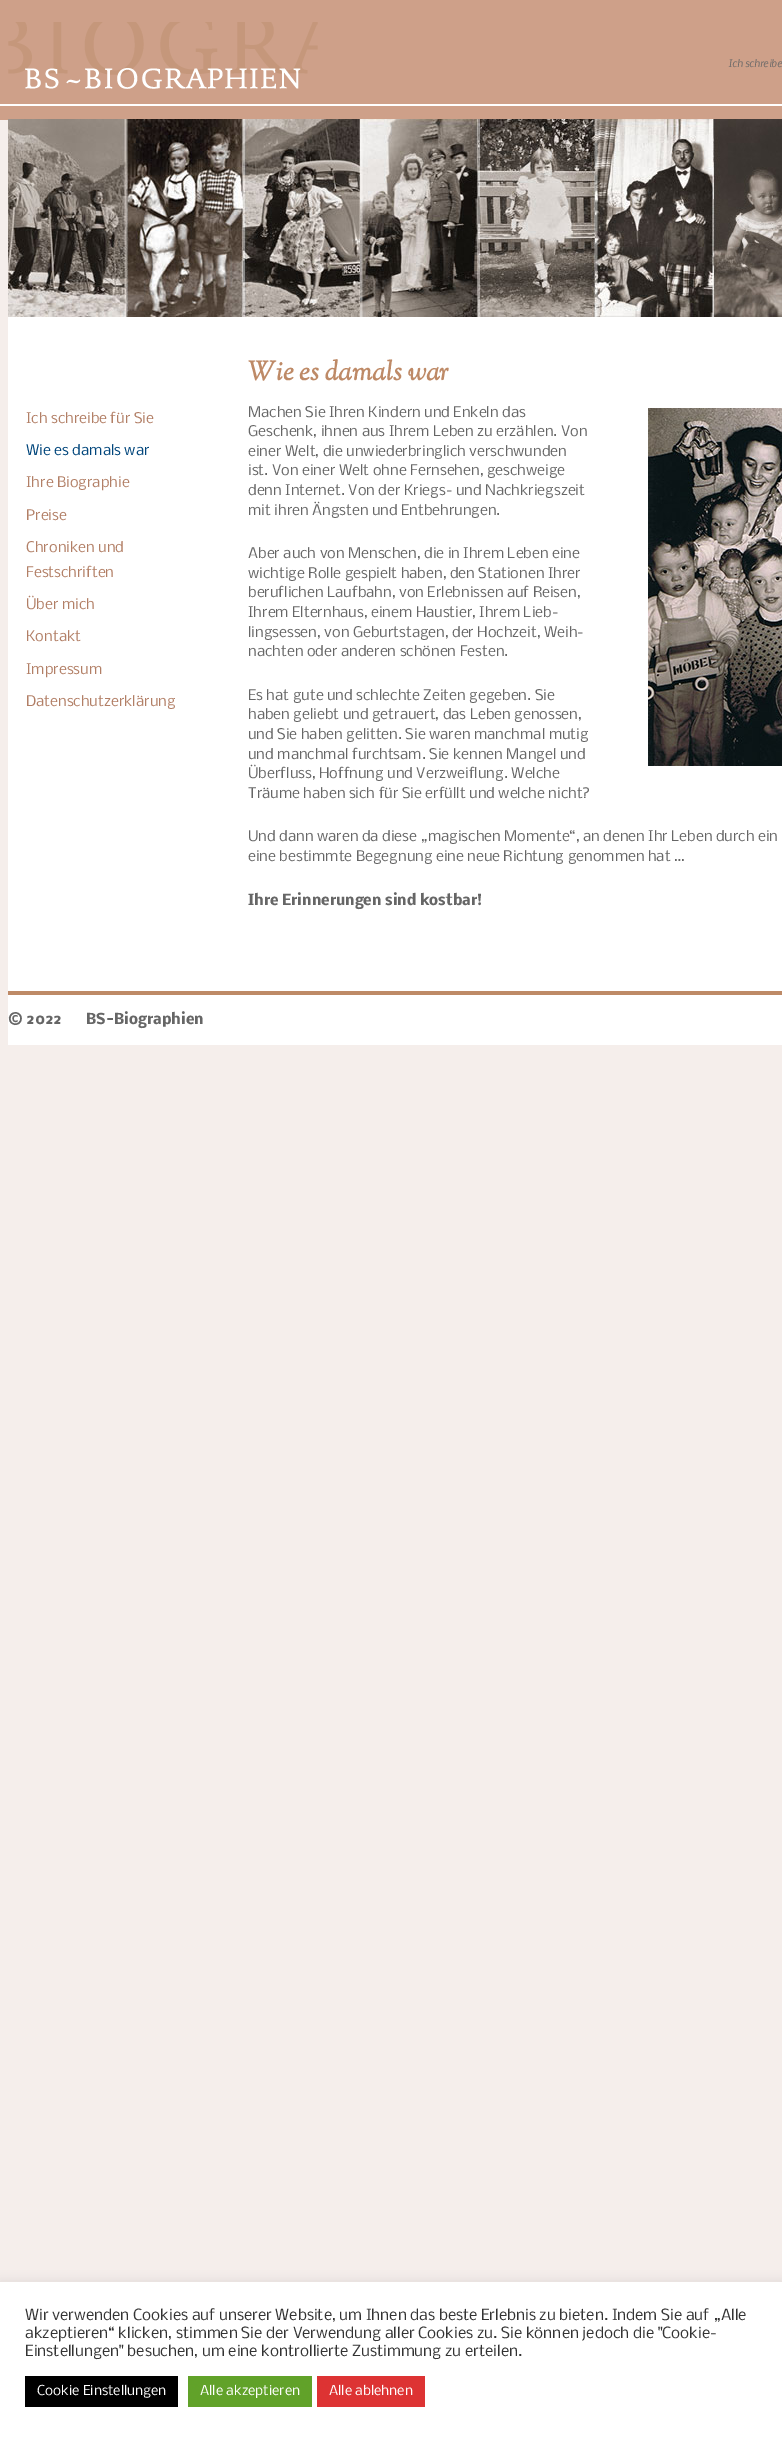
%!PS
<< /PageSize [782 2437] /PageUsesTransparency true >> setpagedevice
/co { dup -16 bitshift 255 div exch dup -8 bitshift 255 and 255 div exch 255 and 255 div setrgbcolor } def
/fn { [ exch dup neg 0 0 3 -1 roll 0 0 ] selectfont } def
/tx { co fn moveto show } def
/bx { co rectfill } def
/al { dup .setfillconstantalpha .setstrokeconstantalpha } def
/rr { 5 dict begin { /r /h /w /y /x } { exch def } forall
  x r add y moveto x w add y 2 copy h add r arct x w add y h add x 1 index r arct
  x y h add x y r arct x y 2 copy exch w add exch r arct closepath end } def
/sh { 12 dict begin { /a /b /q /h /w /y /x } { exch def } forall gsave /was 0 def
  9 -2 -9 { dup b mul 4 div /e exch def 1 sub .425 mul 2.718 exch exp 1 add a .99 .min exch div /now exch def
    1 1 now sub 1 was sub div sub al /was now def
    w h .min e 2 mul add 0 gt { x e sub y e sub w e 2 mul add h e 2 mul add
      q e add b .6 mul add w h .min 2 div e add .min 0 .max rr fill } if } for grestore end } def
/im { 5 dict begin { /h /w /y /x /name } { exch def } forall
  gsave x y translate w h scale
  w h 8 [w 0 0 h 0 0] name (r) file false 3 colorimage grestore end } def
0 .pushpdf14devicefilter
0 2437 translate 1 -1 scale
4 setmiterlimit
0 0 782 2437 16#F5EEEB bx
(media/1.raw) 0 0 782 120 im
(media/2.raw) 8 22 310 67 im
(media/3.raw) 8 119 774 198 im
8 317 774 674 16#FFFFFF bx
(media/4.raw) 648 408 134 358 im
8 995 774 50 16#FFFFFF bx
8 991 774 4 16#BE8A67 bx
16#ACABAB co
0 2281 782 155 0 5 .3 sh
0 2282 782 155 16#FFFFFF bx
25 2376 153 31 16#000000 bx
188 2376 124 31 16#61A229 bx
317 2376 108 31 16#DD3333 bx
(Ich schreibe) 728 67 /Nobile-Italic 10 16#666666 tx
(Ich schreibe für Sie) 26 423 /Nobile-Regular 14 16#B27F66 tx
(Wie es damals war) 26 455 /Nobile-Regular 14 16#00457B tx
(Ihre Biographie) 26 487 /Nobile-Regular 14 16#B27F66 tx
(Preise) 26 520 /Nobile-Regular 14 16#B27F66 tx
(Chroniken und) 26 552 /Nobile-Regular 14 16#B27F66 tx
(Festschriften) 26 577 /Nobile-Regular 14 16#B27F66 tx
(Über mich) 26 609 /Nobile-Regular 14 16#B27F66 tx
(Kontakt) 26 641 /Nobile-Regular 14 16#B27F66 tx
(Impressum) 26 674 /Nobile-Regular 14 16#B27F66 tx
(Datenschutzerklärung) 26 706 /Nobile-Regular 14 16#B27F66 tx
(Wie es damals war) 248 380 /OFLSortsMillGoudyTT-BoldItalic 26.75 16#BE8A67 tx
(Machen Sie Ihren Kindern und Enkeln das) 248 417 /Nobile-Regular 14 16#666666 tx
(Geschenk, ihnen aus Ihrem Leben zu erzählen. Von) 248 436 /Nobile-Regular 14 16#666666 tx
(einer Welt, die unwiederbringlich verschwunden) 248 456 /Nobile-Regular 14 16#666666 tx
(ist. Von einer Welt ohne Fernsehen, geschweige) 248 475 /Nobile-Regular 14 16#666666 tx
(denn Internet. Von der Kriegs- und Nachkriegszeit) 248 495 /Nobile-Regular 14 16#666666 tx
(mit ihren Ängsten und Entbehrungen.) 248 515 /Nobile-Regular 14 16#666666 tx
(Aber auch von Menschen, die in Ihrem Leben eine) 248 558 /Nobile-Regular 14 16#666666 tx
(wichtige Rolle gespielt haben, den Stationen Ihrer) 248 578 /Nobile-Regular 14 16#666666 tx
(beruflichen Laufbahn, von Erlebnissen auf Reisen,) 248 597 /Nobile-Regular 14 16#666666 tx
(Ihrem Elternhaus, einem Haustier, Ihrem Lieb-) 248 617 /Nobile-Regular 14 16#666666 tx
(lingsessen, von Geburtstagen, der Hochzeit, Weih-) 248 637 /Nobile-Regular 14 16#666666 tx
(nachten oder anderen schönen Festen.) 248 656 /Nobile-Regular 14 16#666666 tx
(Es hat gute und schlechte Zeiten gegeben. Sie) 248 700 /Nobile-Regular 14 16#666666 tx
(haben geliebt und getrauert, das Leben genossen,) 248 719 /Nobile-Regular 14 16#666666 tx
(und Sie haben gelitten. Sie waren manchmal mutig) 248 739 /Nobile-Regular 14 16#666666 tx
(und manchmal furchtsam. Sie kennen Mangel und) 248 759 /Nobile-Regular 14 16#666666 tx
(Überfluss, Hoffnung und Verzweiflung. Welche) 248 778 /Nobile-Regular 14 16#666666 tx
(Träume haben sich für Sie erfüllt und welche nicht?) 248 798 /Nobile-Regular 14 16#666666 tx
(Und dann waren da diese „magischen Momente“, an denen Ihr Leben durch ein) 248 841 /Nobile-Regular 14 16#666666 tx
(eine bestimmte Begegnung eine neue Richtung genommen hat …) 248 861 /Nobile-Regular 14 16#666666 tx
(Ihre Erinnerungen sind kostbar!) 248 905 /Nobile-Bold 14 16#666666 tx
(© 2022) 8 1024 /Nobile-Bold 14 16#666666 tx
(BS-Biographien) 86 1024 /Nobile-Bold 14 16#666666 tx
(Wir verwenden Cookies auf unserer Website, um Ihnen das beste Erlebnis zu bieten. Indem Sie auf „Alle) 25 2320 /Nobile-Regular 14.65 16#333333 tx
(akzeptieren“ klicken, stimmen Sie der Verwendung aller Cookies zu. Sie können jedoch die "Cookie-) 25 2338 /Nobile-Regular 14.65 16#333333 tx
(Einstellungen" besuchen, um eine kontrollierte Zustimmung zu erteilen.) 25 2356 /Nobile-Regular 14.65 16#333333 tx
(Cookie Einstellungen) 37 2395 /Nobile-Regular 13 16#FFFFFF tx
(Alle akzeptieren) 200 2395 /Nobile-Regular 13 16#FFFFFF tx
(Alle ablehnen) 329 2395 /Nobile-Regular 13 16#FFFFFF tx
.poppdf14devicefilter showpage
